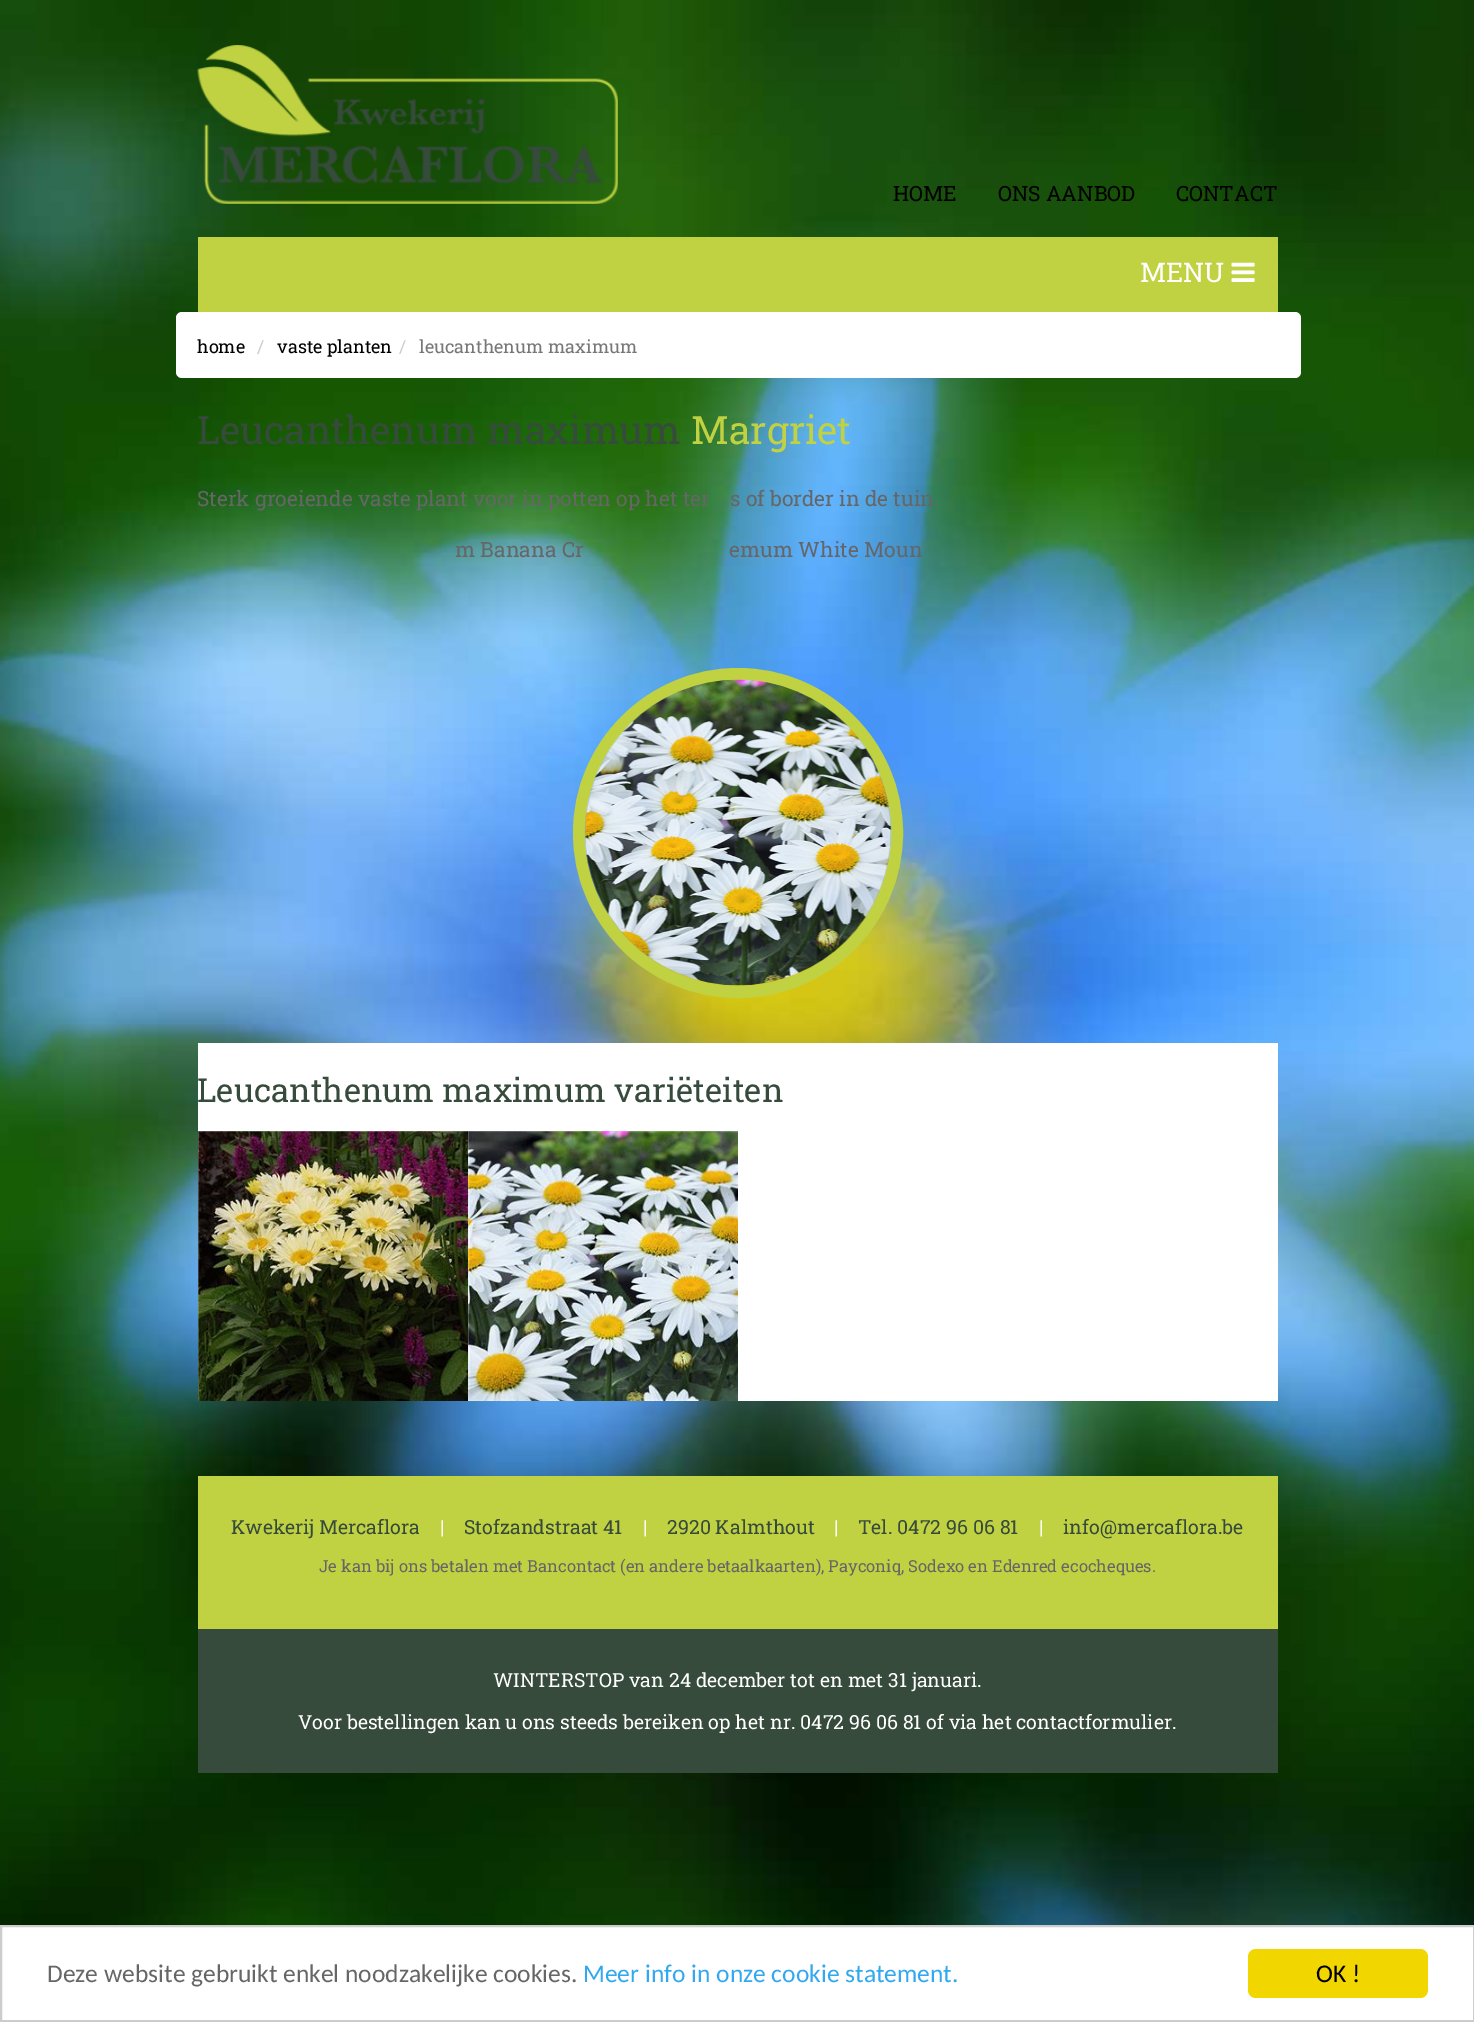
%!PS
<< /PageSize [1474 2022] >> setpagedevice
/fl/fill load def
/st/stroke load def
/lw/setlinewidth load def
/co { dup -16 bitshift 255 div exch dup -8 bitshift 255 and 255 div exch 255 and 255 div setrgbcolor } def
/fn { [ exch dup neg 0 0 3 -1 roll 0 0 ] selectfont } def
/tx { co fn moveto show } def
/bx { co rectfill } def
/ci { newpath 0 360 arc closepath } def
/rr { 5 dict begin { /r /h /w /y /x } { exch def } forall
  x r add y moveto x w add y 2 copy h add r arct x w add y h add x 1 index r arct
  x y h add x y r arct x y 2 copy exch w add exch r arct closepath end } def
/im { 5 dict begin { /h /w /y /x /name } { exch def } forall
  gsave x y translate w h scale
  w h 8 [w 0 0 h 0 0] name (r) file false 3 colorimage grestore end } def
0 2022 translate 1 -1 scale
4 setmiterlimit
0 0 1474 2022 16#FFFFFF bx
(media/1.raw) 0 0 1474 1925 im
(media/2.raw) 197 45 421 159 im
198 237 1080 75 16#C0D242 bx
(media/3.raw) 1231 262 24 20 im
16#FFFFFF co
176 312 1125 66 6 rr fl
16#C0D242 co
12 lw
738 833 159 ci st
(media/4.raw) 584 679 308 307 im
198 1043 1080 358 16#FFFFFF bx
(media/5.raw) 198 1131 270 270 im
(media/6.raw) 468 1131 270 270 im
198 1476 1080 153 16#C0D242 bx
198 1629 1080 144 16#364B3C bx
16#CCCCCC co
2 lw
1 1926 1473 95 rectstroke
16#F1D600 co
1248 1949 180 49 8 rr fl
(HOME) 893 201 /RobotoSlab-Regular 21 16#000000 tx
(ONS AANBOD) 998 201 /RobotoSlab-Regular 21 16#000000 tx
(CONTACT) 1176 201 /RobotoSlab-Regular 21 16#000000 tx
(MENU) 1140 282 /RobotoSlab-Regular 27 16#FFFFFF tx
(home) 197 353 /RobotoSlab-Regular 18 16#000000 tx
(/) 257 353 /RobotoSlab-Regular 18 16#CCCCCC tx
(vaste planten) 277 353 /RobotoSlab-Regular 18 16#000000 tx
(/) 399 353 /RobotoSlab-Regular 18 16#CCCCCC tx
(leucanthenum maximum) 419 353 /RobotoSlab-Regular 18 16#777777 tx
(Leucanthenum maximum) 197 444 /RobotoSlab-Regular 39 16#364B3C tx
(Margriet) 691 444 /RobotoSlab-Regular 39 16#C0D242 tx
(Sterk groeiende vaste plant voor in potten op het ter) 197 506 /RobotoSlab-Regular 21 16#666666 tx
(s of border in de tuin.) 730 506 /RobotoSlab-Regular 21 16#666666 tx
(m Banana Cr) 455 557 /RobotoSlab-Regular 21 16#666666 tx
(emum White Moun) 729 557 /RobotoSlab-Regular 21 16#666666 tx
(Leucanthenum maximum variëteiten) 197 1102 /RobotoSlab-Regular 33 16#364B3C tx
(Kwekerij Mercaflora) 231 1534 /RobotoSlab-Regular 19.5 16#364B3C tx
(|) 440 1534 /RobotoSlab-Regular 19.5 16#FFFFFF tx
(Stofzandstraat 41) 464 1534 /RobotoSlab-Regular 19.5 16#364B3C tx
(|) 643 1534 /RobotoSlab-Regular 19.5 16#FFFFFF tx
(2920 Kalmthout) 667 1534 /RobotoSlab-Regular 19.5 16#364B3C tx
(|) 834 1534 /RobotoSlab-Regular 19.5 16#FFFFFF tx
(Tel. 0472 96 06 81) 858 1534 /RobotoSlab-Regular 19.5 16#364B3C tx
(|) 1039 1534 /RobotoSlab-Regular 19.5 16#FFFFFF tx
(info@mercaflora.be) 1063 1534 /RobotoSlab-Regular 19.5 16#364B3C tx
(Je kan bij ons betalen met Bancontact \(en andere betaalkaarten\), Payconiq, Sodexo en Edenred ecocheques.) 319 1572 /RobotoSlab-Regular 16.58 16#666666 tx
(WINTERSTOP van 24 december tot en met 31 januari.) 493 1687 /RobotoSlab-Regular 19.5 16#FFFFFF tx
(Voor bestellingen kan u ons steeds bereiken op het nr. 0472 96 06 81 of via het contactformulier.) 298 1729 /RobotoSlab-Regular 19.5 16#FFFFFF tx
(Deze website gebruikt enkel noodzakelijke cookies.) 47 1982 /Carlito-Regular 25.5 16#666666 tx
(Meer info in onze cookie statement.) 583 1982 /Carlito-Regular 25.5 16#31A8F0 tx
(OK !) 1316 1982 /Carlito-Regular 25.5 16#000000 tx
showpage
